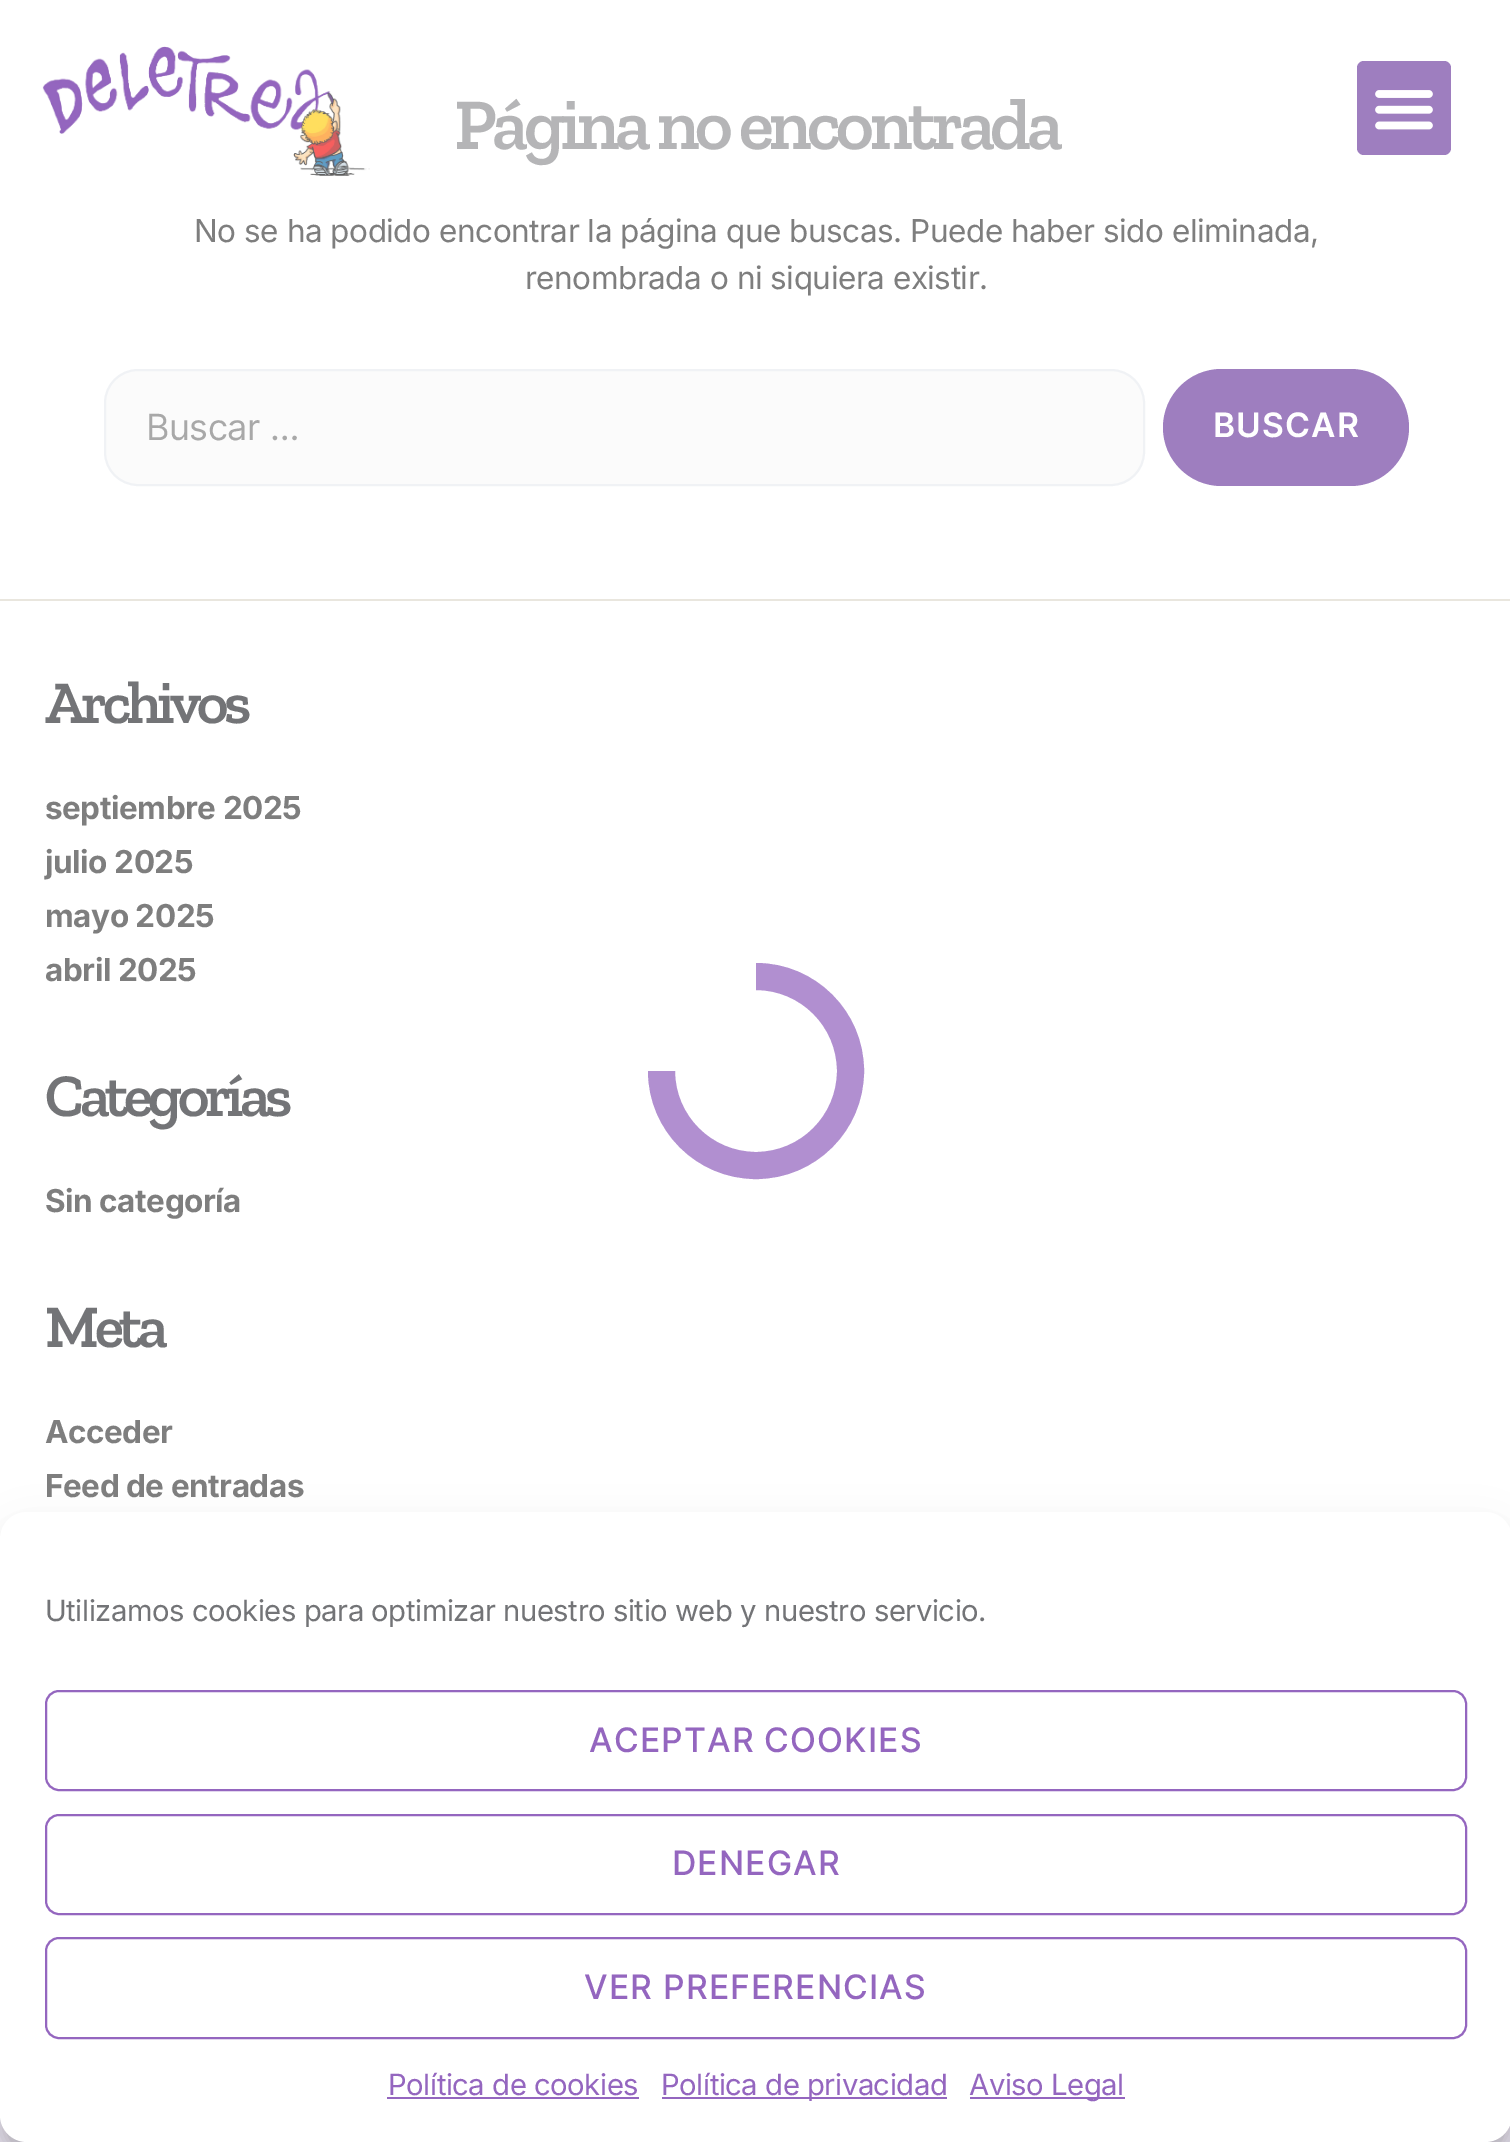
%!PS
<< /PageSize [1510 2142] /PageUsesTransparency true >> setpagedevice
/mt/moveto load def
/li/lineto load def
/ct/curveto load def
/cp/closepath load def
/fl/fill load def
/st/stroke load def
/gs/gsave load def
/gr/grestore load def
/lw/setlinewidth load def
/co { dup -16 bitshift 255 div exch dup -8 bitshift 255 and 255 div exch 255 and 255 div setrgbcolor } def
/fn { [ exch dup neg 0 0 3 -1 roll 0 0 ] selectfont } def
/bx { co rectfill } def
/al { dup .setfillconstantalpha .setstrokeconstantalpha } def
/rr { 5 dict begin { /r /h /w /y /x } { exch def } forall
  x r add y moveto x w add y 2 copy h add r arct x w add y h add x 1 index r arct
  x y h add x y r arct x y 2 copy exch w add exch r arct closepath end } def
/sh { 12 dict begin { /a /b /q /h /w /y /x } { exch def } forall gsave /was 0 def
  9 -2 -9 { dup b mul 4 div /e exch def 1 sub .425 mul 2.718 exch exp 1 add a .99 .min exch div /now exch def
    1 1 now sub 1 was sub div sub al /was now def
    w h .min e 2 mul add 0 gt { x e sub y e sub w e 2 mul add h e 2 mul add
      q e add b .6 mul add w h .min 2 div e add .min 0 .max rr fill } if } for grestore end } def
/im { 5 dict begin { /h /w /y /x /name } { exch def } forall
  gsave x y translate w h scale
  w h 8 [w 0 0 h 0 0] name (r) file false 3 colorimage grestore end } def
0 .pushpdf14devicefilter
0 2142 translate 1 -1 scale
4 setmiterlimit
0 0 1510 2142 16#FFFFFF bx
(media/1.raw) 42 46 328 131 im
16#9E7EBF co
1357 61 94 94 7 rr fl
(media/2.raw) 1375 90 58 40 im
16#FBFBFB co
105 370 1039 115 33 rr gs fl gr
16#F0F2F5 co
2 lw
st
16#9E7EBF co
1163 369 246 117 58.5 rr fl
0 599 1510 2 16#E9E6DE bx
gs 0 2115 mt 1510 2115 li 1510 2142 li 0 2142 li cp clip newpath
<< /ShadingType 2 /ColorSpace /DeviceRGB /Coords [756 1694 756 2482] /Extend [true true] /Function << /FunctionType 2 /Domain [0 1] /C0 [1 1 1] /C1 [.863 .82 .91] /N 1 >> >> shfill gr
16#5E5E5E co
0 1526 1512 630 27 7 .23 sh
0 1535 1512 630 27 22.5 .19 sh
16#FFFFFF co
0 1512 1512 630 27 rr fl
16#9466BF co
46 1691 1420 99 13 rr st
46 1815 1420 99 13 rr st
46 1938 1420 100 13 rr st
387 2097 252 2 16#9466BF bx
662 2097 285 2 16#9466BF bx
970 2097 155 2 16#9466BF bx
16#B18FD0 co
27 lw
756 976.5 mt 808 976.5 850.5 1019 850.5 1071 ct 850.5 1123 808 1165.5 756 1165.5 ct 704 1165.5 661.5 1123 661.5 1071 ct st
/ZillaSlab-SemiBold 72.75 fn
16#737477 co
454 149 mt -4.5 0 (Página no encontrada) ashow
0.47 al
456 98 606 68 16#FFFFFF bx
/Inter-Regular 31.5 fn
1 al
16#7E7E7E co
194 242 mt -.47 0 (No se ha podido encontrar la página que buscas. Puede haber sido eliminada,) ashow
525 289 mt -.47 0 (renombrada o ni siquiera existir.) ashow
/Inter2-Regular 36 fn
16#A8A8A8 co
146 440 mt -.5 0 (Buscar …) ashow
/Inter-SemiBold 33.75 fn
16#FFFFFF co
1213 437 mt 1.1 0 (BUSCAR) ashow
/ZillaSlab-SemiBold 60.5 fn
16#737477 co
45 723 mt -4.5 0 (Archivos) ashow
/Inter-Bold 31.5 fn
16#7E7E7E co
45 819 mt -.47 0 (septiembre 2025) ashow
45 873 mt -.47 0 (julio 2025) ashow
45 927 mt -.47 0 (mayo 2025) ashow
45 981 mt -.47 0 (abril 2025) ashow
/ZillaSlab-SemiBold 60.5 fn
16#737477 co
45 1116 mt -4.5 0 (Categorías) ashow
/Inter-Bold 31.5 fn
16#7E7E7E co
45 1212 mt -.47 0 (Sin categoría) ashow
/ZillaSlab-SemiBold 60.5 fn
16#737477 co
45 1347 mt -4.5 0 (Meta) ashow
/Inter-Bold 31.5 fn
16#7E7E7E co
45 1443 mt -.47 0 (Acceder) ashow
45 1497 mt -.47 0 (Feed de entradas) ashow
/Inter-Regular 29.25 fn
16#737477 co
45 1621 mt -.47 0 (Utilizamos cookies para optimizar nuestro sitio web y nuestro servicio.) ashow
/Inter-Medium 33.75 fn
16#9466BF co
589 1752 mt 1.1 0 (ACEPTAR COOKIES) ashow
672 1875 mt 1.1 0 (DENEGAR) ashow
584 1999 mt 1.1 0 (VER PREFERENCIAS) ashow
/Inter-Regular 29.25 fn
388 2095 mt -.47 0 (Política de cookies) ashow
661 2095 mt -.47 0 (Política de privacidad) ashow
969 2095 mt -.47 0 (Aviso Legal) ashow
.poppdf14devicefilter showpage
